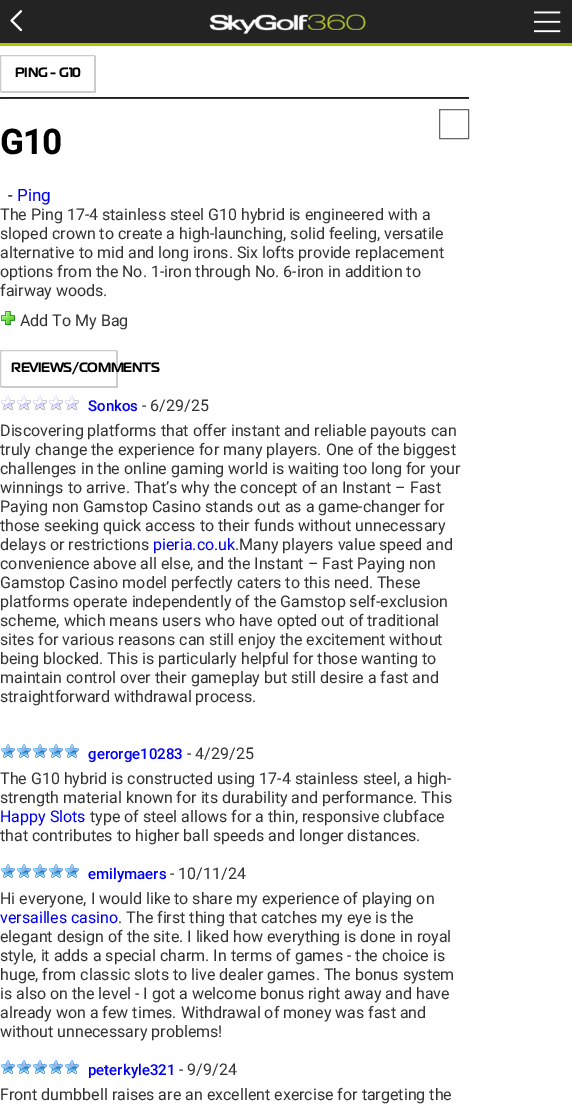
%!PS
<< /PageSize [572 1113] >> setpagedevice
/mt/moveto load def
/li/lineto load def
/cp/closepath load def
/fl/fill load def
/co { dup -16 bitshift 255 div exch dup -8 bitshift 255 and 255 div exch 255 and 255 div setrgbcolor } def
/fn { [ exch dup neg 0 0 3 -1 roll 0 0 ] selectfont } def
/tx { co fn moveto show } def
/bx { co rectfill } def
/im { 5 dict begin { /h /w /y /x /name } { exch def } forall
  gsave x y translate w h scale
  w h 8 [w 0 0 h 0 0] name (r) file false 3 colorimage grestore end } def
0 1113 translate 1 -1 scale
4 setmiterlimit
0 0 572 1113 16#FFFFFF bx
0 43 572 3 16#AFC603 bx
0 0 572 43 16#232323 bx
(media/1.raw) 209 14 157 20 im
(media/2.raw) 10 10 13 22 im
(media/3.raw) 534 11 27 22 im
16#CCCCCC co
1 92 mt 1 93 li 96 93 li 96 56 li 95 56 li 95 92 li cp fl
.5 55.5 94 36 rectstroke
0 97 469 1 16#222222 bx
468 97 1 2 16#333333 bx
0 98 469 1 16#333333 bx
0 97 1 2 16#222222 bx
16#666666 co
439.5 109.5 29 29 rectstroke
(media/4.raw) 1 311 14 14 im
16#CCCCCC co
1 387 mt 1 388 li 118 388 li 118 351 li 117 351 li 117 387 li cp fl
.5 350.5 116 36 rectstroke
(media/5.raw) 1 396 14 14 im
(media/5.raw) 17 396 14 14 im
(media/5.raw) 33 396 14 14 im
(media/5.raw) 49 396 14 14 im
(media/5.raw) 65 396 14 14 im
(media/6.raw) 1 744 14 14 im
(media/6.raw) 17 744 14 14 im
(media/6.raw) 33 744 14 14 im
(media/6.raw) 49 744 14 14 im
(media/6.raw) 65 744 14 14 im
(media/6.raw) 1 864 14 14 im
(media/6.raw) 17 864 14 14 im
(media/6.raw) 33 864 14 14 im
(media/6.raw) 49 864 14 14 im
(media/6.raw) 65 864 14 14 im
(media/6.raw) 1 1060 14 14 im
(media/6.raw) 17 1060 14 14 im
(media/6.raw) 33 1060 14 14 im
(media/6.raw) 49 1060 14 14 im
(media/6.raw) 65 1060 14 14 im
(PING - G10) 15 77 /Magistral-Bold 13 16#000000 tx
(G10) 0 154 /Roboto-Bold 34 16#000000 tx
(-) 8 201 /Roboto-Regular 17 16#000000 tx
(Ping) 17 201 /Roboto-Regular 17 16#0000EE tx
(The Ping 17-4 stainless steel G10 hybrid is engineered with a) 0 220 /Roboto-Regular 16 16#333333 tx
(sloped crown to create a high-launching, solid feeling, versatile) 0 239 /Roboto-Regular 16 16#333333 tx
(alternative to mid and long irons. Six lofts provide replacement) 0 258 /Roboto-Regular 16 16#333333 tx
(options from the No. 1-iron through No. 6-iron in addition to) 0 277 /Roboto-Regular 16 16#333333 tx
(fairway woods.) 0 296 /Roboto-Regular 16 16#333333 tx
(Add To My Bag) 20 326 /Roboto-Regular 16 16#333333 tx
(REVIEWS/COMMENTS) 11 372 /Magistral-Bold 13 16#000000 tx
(Sonkos) 88 411 /Roboto-Medium 15 16#0000EE tx
(- 6/29/25) 142 411 /Roboto-Regular 16 16#333333 tx
(Discovering platforms that offer instant and reliable payouts can) 0 436 /Roboto-Regular 16 16#333333 tx
(truly change the experience for many players. One of the biggest) 0 455 /Roboto-Regular 16 16#333333 tx
(challenges in the online gaming world is waiting too long for your) 0 474 /Roboto-Regular 16 16#333333 tx
(winnings to arrive. That’s why the concept of an Instant – Fast) 0 493 /Roboto-Regular 16 16#333333 tx
(Paying non Gamstop Casino stands out as a game-changer for) 0 512 /Roboto-Regular 16 16#333333 tx
(those seeking quick access to their funds without unnecessary) 0 531 /Roboto-Regular 16 16#333333 tx
(delays or restrictions) 0 550 /Roboto-Regular 16 16#333333 tx
(pieria.co.uk) 153 550 /Roboto-Regular 16 16#0000EE tx
(.Many players value speed and) 235 550 /Roboto-Regular 16 16#333333 tx
(convenience above all else, and the Instant – Fast Paying non) 0 569 /Roboto-Regular 16 16#333333 tx
(Gamstop Casino model perfectly caters to this need. These) 0 588 /Roboto-Regular 16 16#333333 tx
(platforms operate independently of the Gamstop self-exclusion) 0 607 /Roboto-Regular 16 16#333333 tx
(scheme, which means users who have opted out of traditional) 0 626 /Roboto-Regular 16 16#333333 tx
(sites for various reasons can still enjoy the excitement without) 0 645 /Roboto-Regular 16 16#333333 tx
(being blocked. This is particularly helpful for those wanting to) 0 664 /Roboto-Regular 16 16#333333 tx
(maintain control over their gameplay but still desire a fast and) 0 683 /Roboto-Regular 16 16#333333 tx
(straightforward withdrawal process.) 0 702 /Roboto-Regular 16 16#333333 tx
(gerorge10283) 88 759 /Roboto-Medium 15 16#0000EE tx
(- 4/29/25) 187 759 /Roboto-Regular 16 16#333333 tx
(The G10 hybrid is constructed using 17-4 stainless steel, a high-) 0 784 /Roboto-Regular 16 16#333333 tx
(strength material known for its durability and performance. This) 0 803 /Roboto-Regular 16 16#333333 tx
(Happy Slots) 0 822 /Roboto-Regular 16 16#0000EE tx
(type of steel allows for a thin, responsive clubface) 90 822 /Roboto-Regular 16 16#333333 tx
(that contributes to higher ball speeds and longer distances.) 0 841 /Roboto-Regular 16 16#333333 tx
(emilymaers) 88 879 /Roboto-Medium 15 16#0000EE tx
(- 10/11/24) 170 879 /Roboto-Regular 16 16#333333 tx
(Hi everyone, I would like to share my experience of playing on) 0 904 /Roboto-Regular 16 16#333333 tx
(versailles casino) 0 923 /Roboto-Regular 16 16#0000EE tx
(. The first thing that catches my eye is the) 118 923 /Roboto-Regular 16 16#333333 tx
(elegant design of the site. I liked how everything is done in royal) 0 942 /Roboto-Regular 16 16#333333 tx
(style, it adds a special charm. In terms of games - the choice is) 0 961 /Roboto-Regular 16 16#333333 tx
(huge, from classic slots to live dealer games. The bonus system) 0 980 /Roboto-Regular 16 16#333333 tx
(is also on the level - I got a welcome bonus right away and have) 0 999 /Roboto-Regular 16 16#333333 tx
(already won a few times. Withdrawal of money was fast and) 0 1018 /Roboto-Regular 16 16#333333 tx
(without unnecessary problems!) 0 1037 /Roboto-Regular 16 16#333333 tx
(peterkyle321) 88 1075 /Roboto-Medium 15 16#0000EE tx
(- 9/9/24) 179 1075 /Roboto-Regular 16 16#333333 tx
(Front dumbbell raises are an excellent exercise for targeting the) 0 1100 /Roboto-Regular 16 16#333333 tx
showpage
